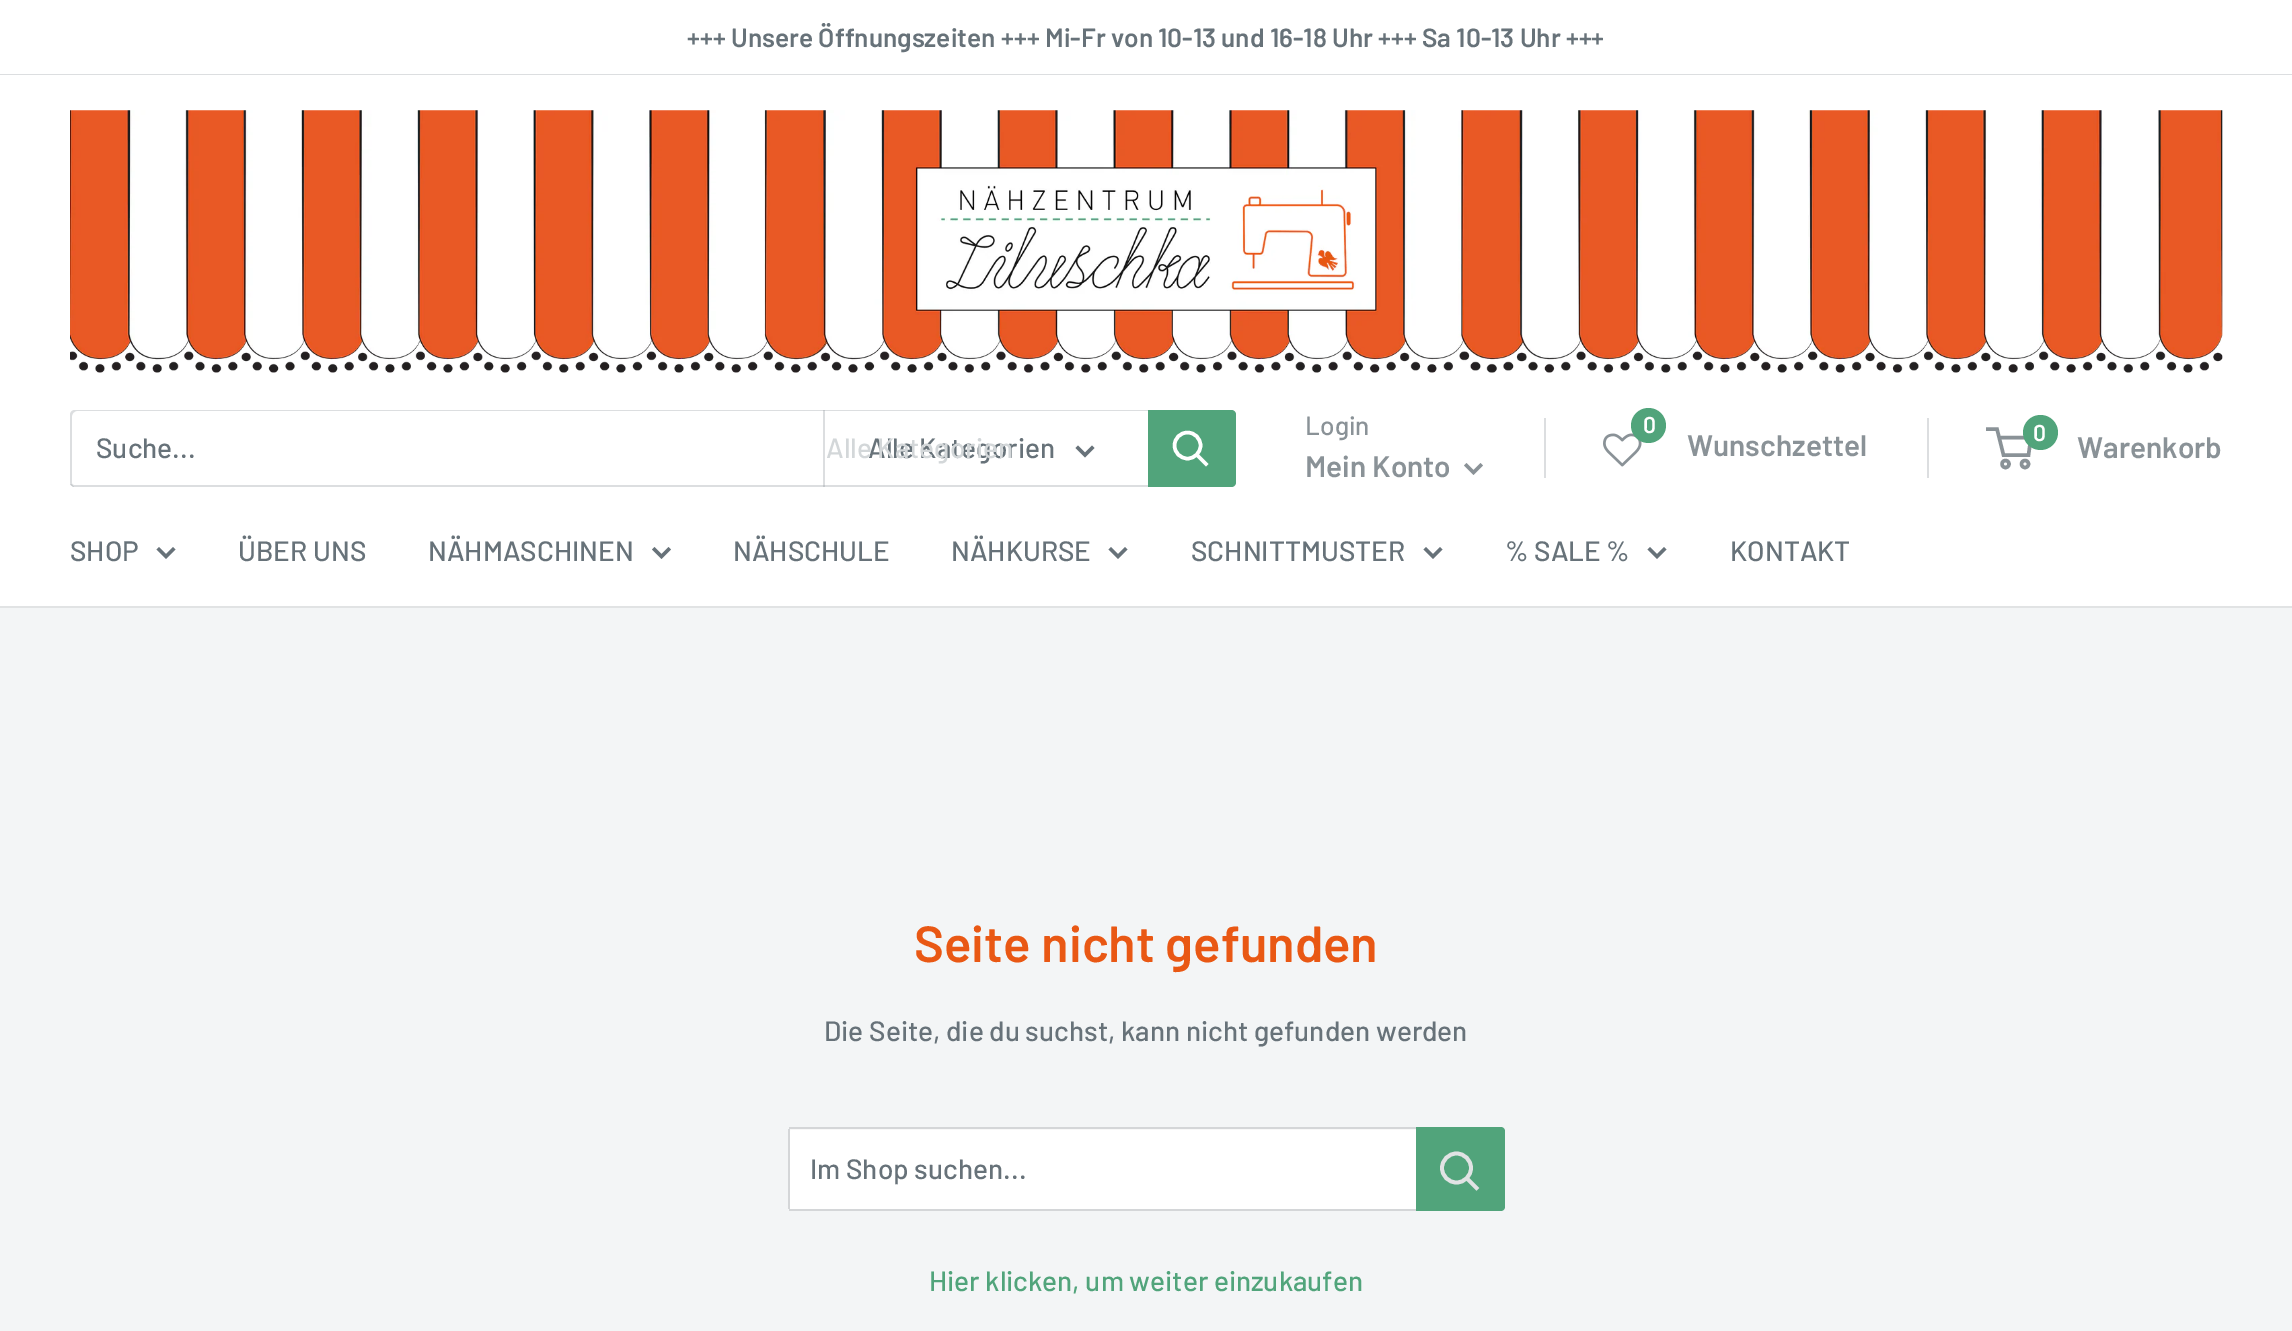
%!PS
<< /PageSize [2292 1331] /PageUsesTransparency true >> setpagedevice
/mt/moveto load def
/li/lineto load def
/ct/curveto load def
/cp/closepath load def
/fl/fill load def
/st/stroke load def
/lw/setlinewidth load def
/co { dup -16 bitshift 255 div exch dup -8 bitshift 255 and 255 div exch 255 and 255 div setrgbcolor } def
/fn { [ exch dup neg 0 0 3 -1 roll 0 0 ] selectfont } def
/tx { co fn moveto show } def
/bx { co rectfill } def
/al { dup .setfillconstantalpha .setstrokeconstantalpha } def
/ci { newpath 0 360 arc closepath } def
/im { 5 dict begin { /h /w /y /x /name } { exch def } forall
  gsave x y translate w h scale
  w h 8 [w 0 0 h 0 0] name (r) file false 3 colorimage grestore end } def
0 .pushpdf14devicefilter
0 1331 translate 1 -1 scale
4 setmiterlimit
0 0 2292 1331 16#F3F5F6 bx
0 0 2292 74 16#FFFFFF bx
0 74 2292 1 16#DCDEE0 bx
0 75 2292 531 16#FFFFFF bx
(media/1.raw) 70 110 2153 263 im
16#DCDEE0 co
70 484 mt 71 486 73 487 75 487 ct 1231 487 li 1234 487 1236 485 1236 482 ct 1236 415 li 1236 413 1235 411 1233 411 ct 1234 413 li 1234 480 li 1234 482 1231 485 1228 485 ct 74 485 li 73 485 71 484 70 484 ct cp fl
0.3 al
16#8A9297 co
77 411 mt 1232 411 li 1235 412 li 1234 411 1233 410 1231 410 ct 75 410 li 72 410 70 412 70 415 ct 70 482 li 70 484 71 486 74 487 ct 73 486 72 485 72 483 ct 72 416 li 72 414 74 411 77 411 ct cp fl
823 410 2 77 16#8A9297 bx
1 al
16#677279 co
3.5 lw
2 setlinecap
1092 448 mt 1085 455 li 1078 448 li st
16#51A47B co
1148 410 mt 1231 410 li 1234 410 1236 412 1236 415 ct 1236 482 li 1236 485 1234 487 1231 487 ct 1148 487 li cp fl
16#FFFFFF co
1206 464 mt 1197 455 li st
0 setlinecap
1187.5 445.5 13 ci st
1544 418 2 60 16#DCDEE0 bx
16#8A9297 co
2 setlinecap
1480.5 465.5 mt 1473.5 472.5 li 1466.5 465.5 li st
(media/2.raw) 1603 433 39 34 im
16#51A47B co
1648.5 425.5 17.5 ci fl
1927 418 2 60 16#DCDEE0 bx
16#8A9297 co
0 setlinecap
2005.5 464 3.5 ci st
2025 464 3.5 ci st
1999 437.5 mt 2031 437.5 li 2028.5 455 li 2003.5 455 li 1997 429 li 1986 429 li st
16#51A47B co
2040.5 432.5 17.5 ci fl
0 606 2292 2 16#E1E3E4 bx
16#677279 co
2 setlinecap
173 549.5 mt 166 556.5 li 159 549.5 li st
668.5 549.5 mt 661.5 556.5 li 654.5 549.5 li st
1125 549.5 mt 1118 556.5 li 1111 549.5 li st
1440 549.5 mt 1433 556.5 li 1426 549.5 li st
1664 549.5 mt 1657 556.5 li 1650 549.5 li st
16#FFFFFF co
792 1127 mt 1416 1127 li 1416 1211 li 792 1211 li 790 1211 788 1209 788 1207 ct 788 1131 li 788 1129 790 1127 792 1127 ct cp fl
16#F8F8F8 co
791 1130 mt 1416 1130 li 1416 1129 li 791 1129 li 789 1129 789 1131 789 1132 ct 789 1131 790 1130 791 1130 ct cp fl
789 1127 627 2 16#D4D6D8 bx
789 1209 627 2 16#D4D6D8 bx
788 1129 2 80 16#D4D6D8 bx
16#51A47B co
1416 1127 mt 1501 1127 li 1503 1127 1505 1129 1505 1131 ct 1505 1207 li 1505 1209 1503 1211 1501 1211 ct 1416 1211 li cp fl
16#E1E3E4 co
3.8 lw
1476.5 1188 mt 1467 1178.5 li st
0 setlinecap
1456.5 1168 14.5 ci st
(+++ Unsere Öffnungszeiten +++ Mi-Fr von 10-13 und 16-18 Uhr +++ Sa 10-13 Uhr +++) 687 47 /Barlow-SemiBold 26.25 16#677279 tx
(Suche...) 96 458 /Barlow-Medium 28 16#677279 tx
(Alle Kategorien) 868 458 /Barlow-Medium 28 16#677279 tx
(Alle Kategorien) 826 458 /Barlow-Medium 28 16#D3D7D9 tx
(Login) 1305 435 /Barlow-Medium 26.25 16#8A9297 tx
(Mein Konto) 1305 477 /Barlow-SemiBold 29.75 16#8A9297 tx
(0) 1643 433 /Barlow-SemiBold 23 16#FFFFFF tx
(Wunschzettel) 1687 456 /Barlow-SemiBold 29.75 16#8A9297 tx
(0) 2033 441 /Barlow-SemiBold 23 16#FFFFFF tx
(Warenkorb) 2077 458 /Barlow-SemiBold 29.75 16#8A9297 tx
(SHOP) 70 561 /Barlow-Medium 28 16#677279 tx
(ÜBER UNS) 238 561 /Barlow-Medium 28 16#677279 tx
(NÄHMASCHINEN) 428 561 /Barlow-Medium 28 16#677279 tx
(NÄHSCHULE) 733 561 /Barlow-Medium 28 16#677279 tx
(NÄHKURSE) 951 561 /Barlow-Medium 28 16#677279 tx
(SCHNITTMUSTER) 1191 561 /Barlow-Medium 28 16#677279 tx
(% SALE %) 1505 561 /Barlow-Medium 28 16#677279 tx
(KONTAKT) 1730 561 /Barlow-Medium 28 16#677279 tx
(Seite nicht gefunden) 914 962 /Barlow-SemiBold 50.75 16#E95814 tx
(Die Seite, die du suchst, kann nicht gefunden werden) 824 1041 /Barlow-Medium 28 16#677279 tx
(Im Shop suchen...) 810 1179 /Barlow-Medium 28 16#677279 tx
(Hier klicken, um weiter einzukaufen) 929 1291 /Barlow-Medium 28 16#51A47B tx
.poppdf14devicefilter showpage
